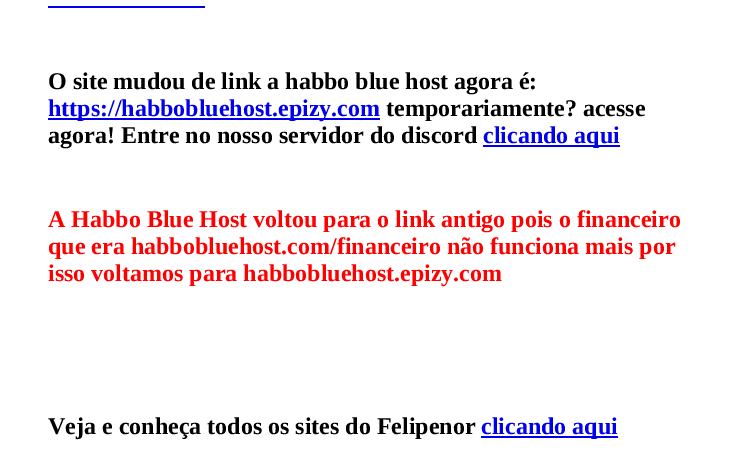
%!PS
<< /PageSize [731 471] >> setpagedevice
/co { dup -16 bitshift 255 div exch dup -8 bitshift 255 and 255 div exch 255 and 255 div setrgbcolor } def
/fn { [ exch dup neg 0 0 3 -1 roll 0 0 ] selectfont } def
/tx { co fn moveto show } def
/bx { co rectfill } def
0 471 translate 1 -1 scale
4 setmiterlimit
0 0 731 471 16#FFFFFF bx
48 6 157 2 16#0000EE bx
48 118 332 2 16#0000EE bx
483 145 137 2 16#0000EE bx
481 436 137 2 16#0000EE bx
(O site mudou de link a habbo blue host agora é:) 48 89 /LiberationSerif-Bold 24 16#000000 tx
(https://habbobluehost.epizy.com) 48 116 /LiberationSerif-Bold 24 16#0000EE tx
(temporariamente? acesse) 386 116 /LiberationSerif-Bold 24 16#000000 tx
(agora! Entre no nosso servidor do discord) 48 143 /LiberationSerif-Bold 24 16#000000 tx
(clicando aqui) 483 143 /LiberationSerif-Bold 24 16#0000EE tx
(A Habbo Blue Host voltou para o link antigo pois o financeiro) 48 227 /LiberationSerif-Bold 24 16#FF0000 tx
(que era habbobluehost.com/financeiro não funciona mais por) 48 254 /LiberationSerif-Bold 24 16#FF0000 tx
(isso voltamos para habbobluehost.epizy.com) 48 281 /LiberationSerif-Bold 24 16#FF0000 tx
(Veja e conheça todos os sites do Felipenor) 48 434 /LiberationSerif-Bold 24 16#000000 tx
(clicando aqui) 481 434 /LiberationSerif-Bold 24 16#0000EE tx
showpage
